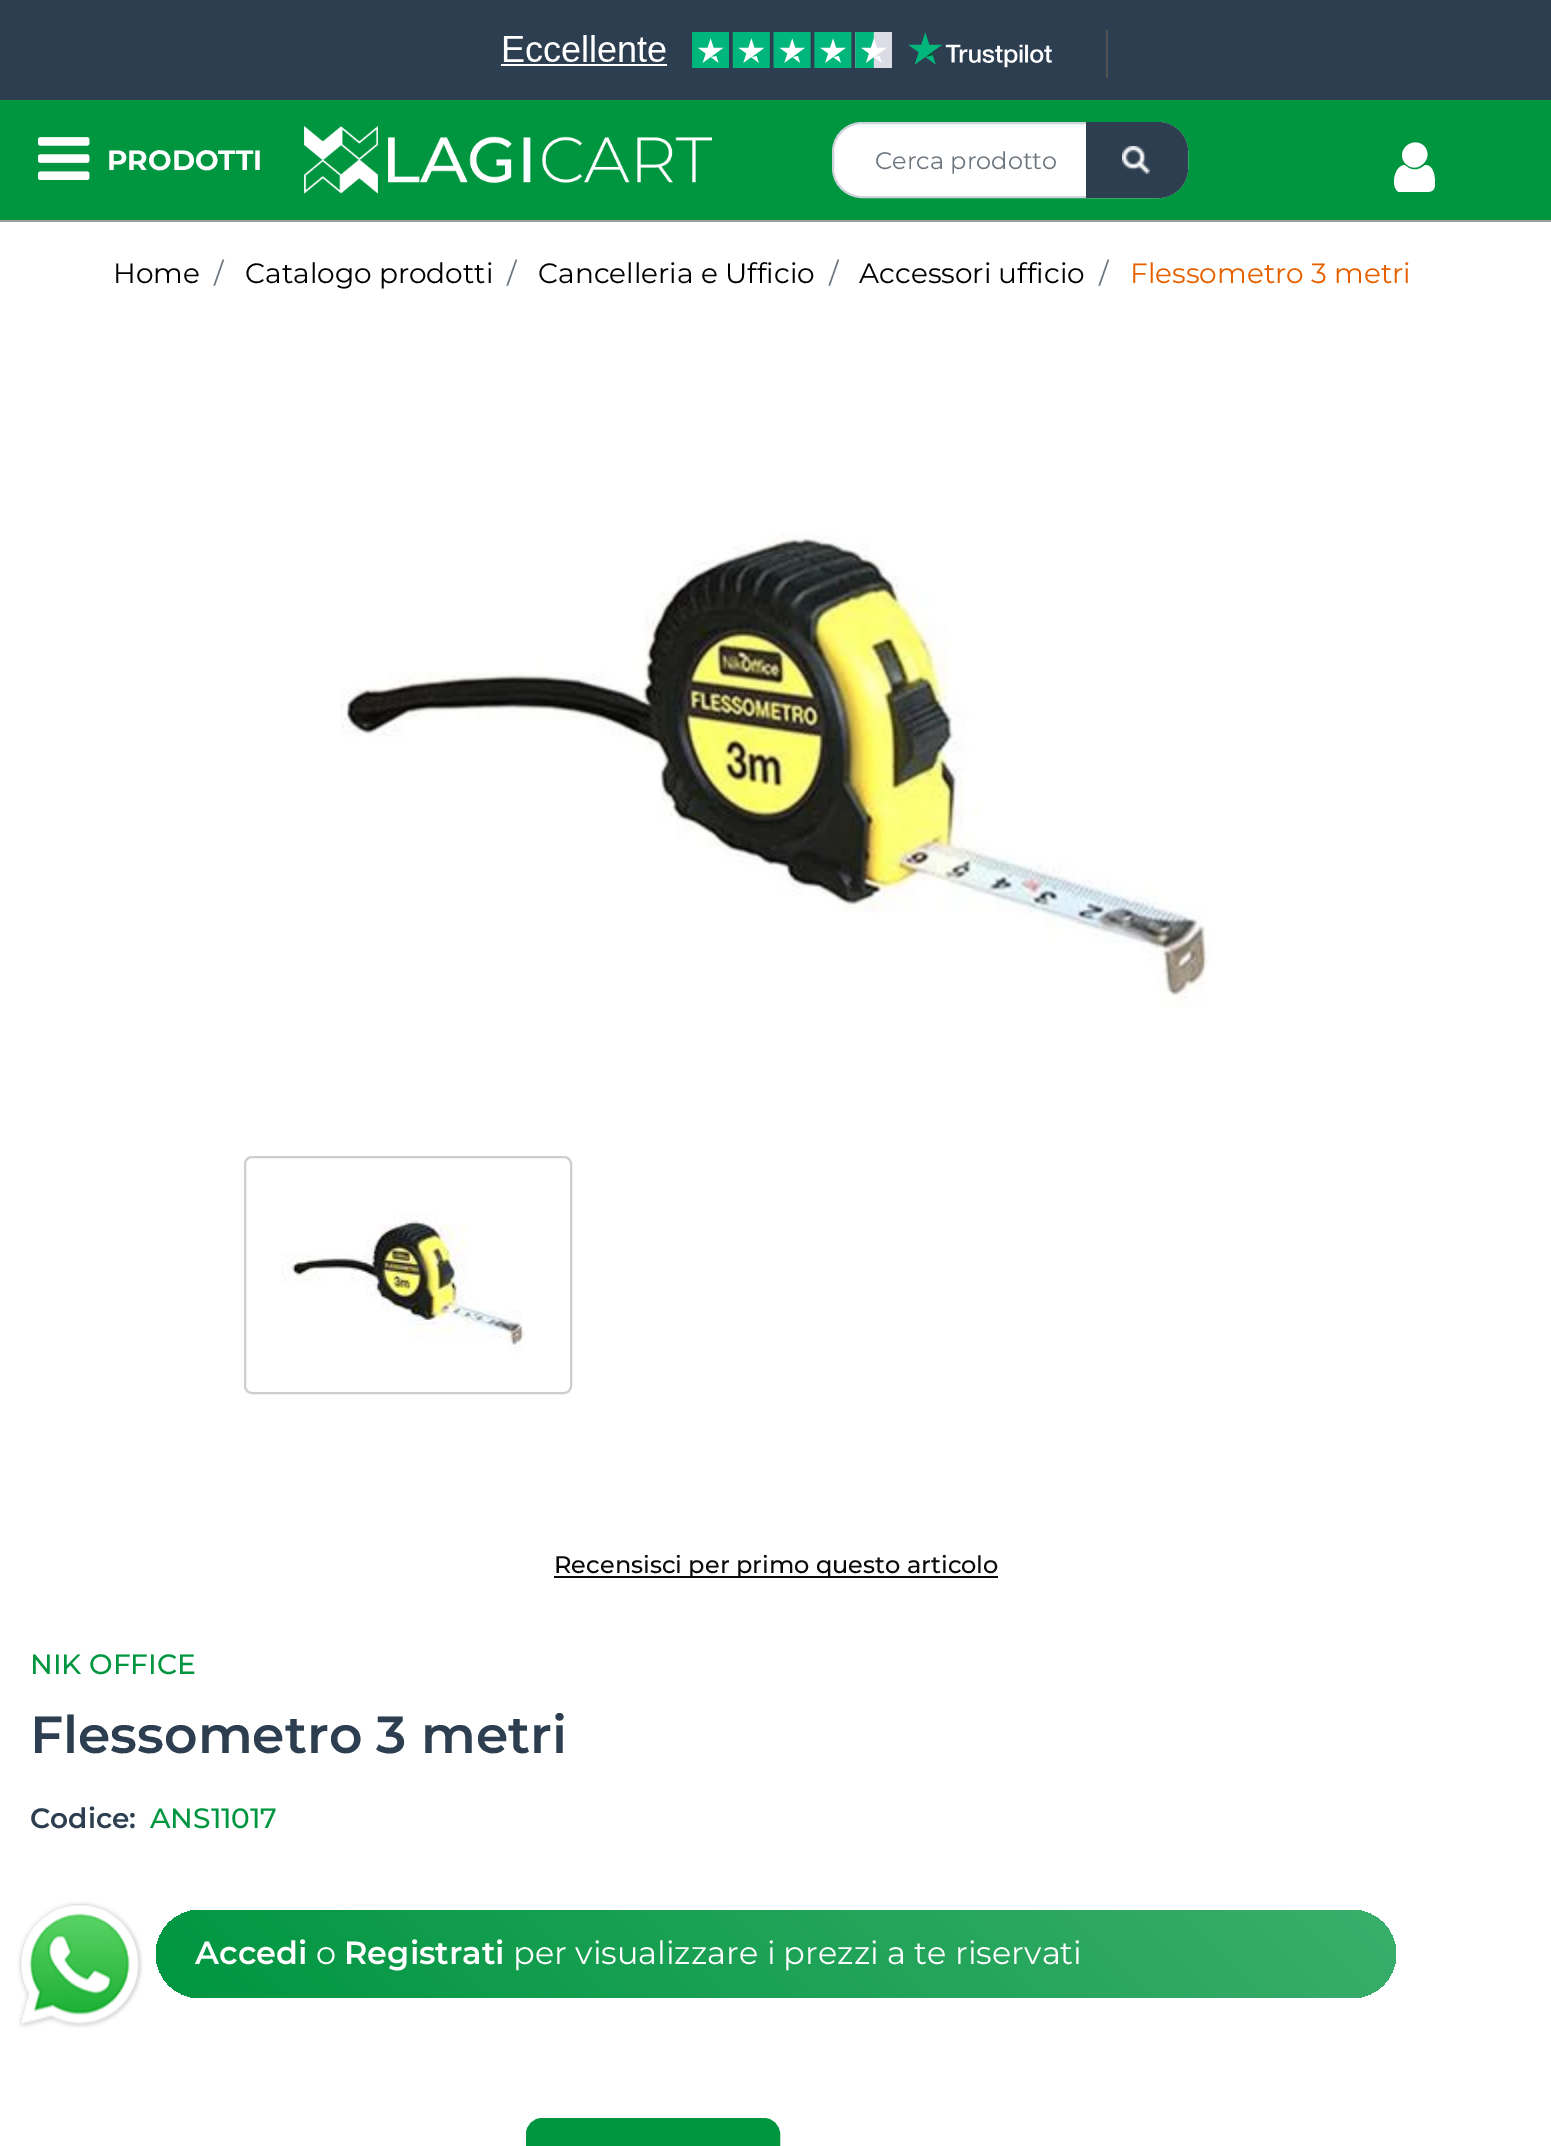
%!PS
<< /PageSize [1551 2146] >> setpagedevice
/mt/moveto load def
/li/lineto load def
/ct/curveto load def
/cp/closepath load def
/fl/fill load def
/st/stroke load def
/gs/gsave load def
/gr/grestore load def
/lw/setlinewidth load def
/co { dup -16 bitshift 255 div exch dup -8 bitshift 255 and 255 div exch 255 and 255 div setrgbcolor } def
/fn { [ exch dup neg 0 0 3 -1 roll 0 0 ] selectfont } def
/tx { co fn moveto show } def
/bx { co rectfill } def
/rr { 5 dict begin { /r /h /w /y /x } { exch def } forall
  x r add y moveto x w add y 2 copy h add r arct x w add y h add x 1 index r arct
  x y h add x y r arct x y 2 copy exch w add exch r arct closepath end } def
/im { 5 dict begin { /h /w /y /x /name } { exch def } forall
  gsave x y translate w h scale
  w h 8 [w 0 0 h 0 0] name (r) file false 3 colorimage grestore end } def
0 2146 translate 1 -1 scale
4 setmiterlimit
0 0 1551 2146 16#FFFFFF bx
0 0 1551 100 16#2D3E50 bx
1106 30 2 48 16#525252 bx
(media/1.raw) 500 32 552 36 im
0 100 1551 120 16#009640 bx
0 220 1551 2 16#9B9F9E bx
(media/2.raw) 38 137 52 43 im
(media/3.raw) 304 126 408 68 im
16#FFFFFF co
833 123 354 74 29 rr gs fl gr
16#CED4DA co
2 lw
st
16#2D3E50 co
1086 122 mt 1158 122 li 1174.5 122 1188 135.5 1188 152 ct 1188 168 li 1188 184.5 1174.5 198 1158 198 ct 1086 198 li cp fl
(media/4.raw) 1122 146 28 28 im
16#FFFFFF co
1435 184 mt 1435 192 1430 192 1424 192 ct 1399 192 li 1390 188 1394 165 1405 165 ct 1410 171 1419 171 1425 165 ct 1434 165 1435 177 1435 184 ct cp 1424 146 mt 1435 158 1417 175 1406 164 ct 1394 152 1412 135 1424 146 ct cp fl
(media/5.raw) 340 532 871 476 im
16#CECECE co
245 1157 326 236 7 rr st
(media/6.raw) 281 1211 244 142 im
554 1576 444 2 16#0A0A0A bx
gs 156 1910 1240 88 44 rr clip newpath
<< /ShadingType 2 /ColorSpace /DeviceRGB /Coords [444 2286 1108 1622] /Extend [true true] /Function << /FunctionType 2 /Domain [0 1] /C0 [0 .588 .251] /C1 [.231 .682 .424] /N 1 >> >> shfill gr
16#009640 co
542 2120 mt 764 2120 li 771.5 2120 778 2126.5 778 2134 ct 778 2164 li 528 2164 li 528 2134 li 528 2126.5 534.5 2120 542 2120 ct cp gs fl gr
4 lw
st
(media/7.raw) 17 1901 126 127 im
(PRODOTTI) 107 170 /Montserrat-Bold 28 16#FFFFFF tx
(Cerca prodotto) 875 169 /Montserrat-Regular 24 16#6C757D tx
(Home) 113 283 /Montserrat-Regular 28 16#000000 tx
(/) 214 283 /Montserrat-Regular 28 16#6C757D tx
(Catalogo prodotti) 245 283 /Montserrat-Regular 28 16#000000 tx
(/) 507 283 /Montserrat-Regular 28 16#6C757D tx
(Cancelleria e Ufficio) 538 283 /Montserrat-Regular 28 16#000000 tx
(/) 829 283 /Montserrat-Regular 28 16#6C757D tx
(Accessori ufficio) 859 283 /Montserrat-Regular 28 16#000000 tx
(/) 1099 283 /Montserrat-Regular 28 16#6C757D tx
(Flessometro 3 metri) 1130 283 /Montserrat-Regular 28 16#E76000 tx
(Recensisci per primo questo articolo) 554 1573 /Montserrat-Medium 24 16#0A0A0A tx
(NIK OFFICE) 30 1674 /Montserrat-Medium 28 16#009640 tx
(Flessometro 3 metri) 30 1753 /Montserrat-SemiBold 52 16#2D3E50 tx
(Codice:) 30 1828 /Montserrat-SemiBold 28 16#2D3E50 tx
(ANS11017) 150 1828 /Montserrat-Medium 28 16#009640 tx
(Accedi) 195 1964 /Montserrat-SemiBold 32 16#FFFFFF tx
(o) 316 1964 /Montserrat-Regular 32 16#FFFFFF tx
(Registrati) 344 1964 /Montserrat-SemiBold 32 16#FFFFFF tx
(per visualizzare i prezzi a te riservati) 513 1964 /Montserrat-Regular 32 16#FFFFFF tx
showpage
